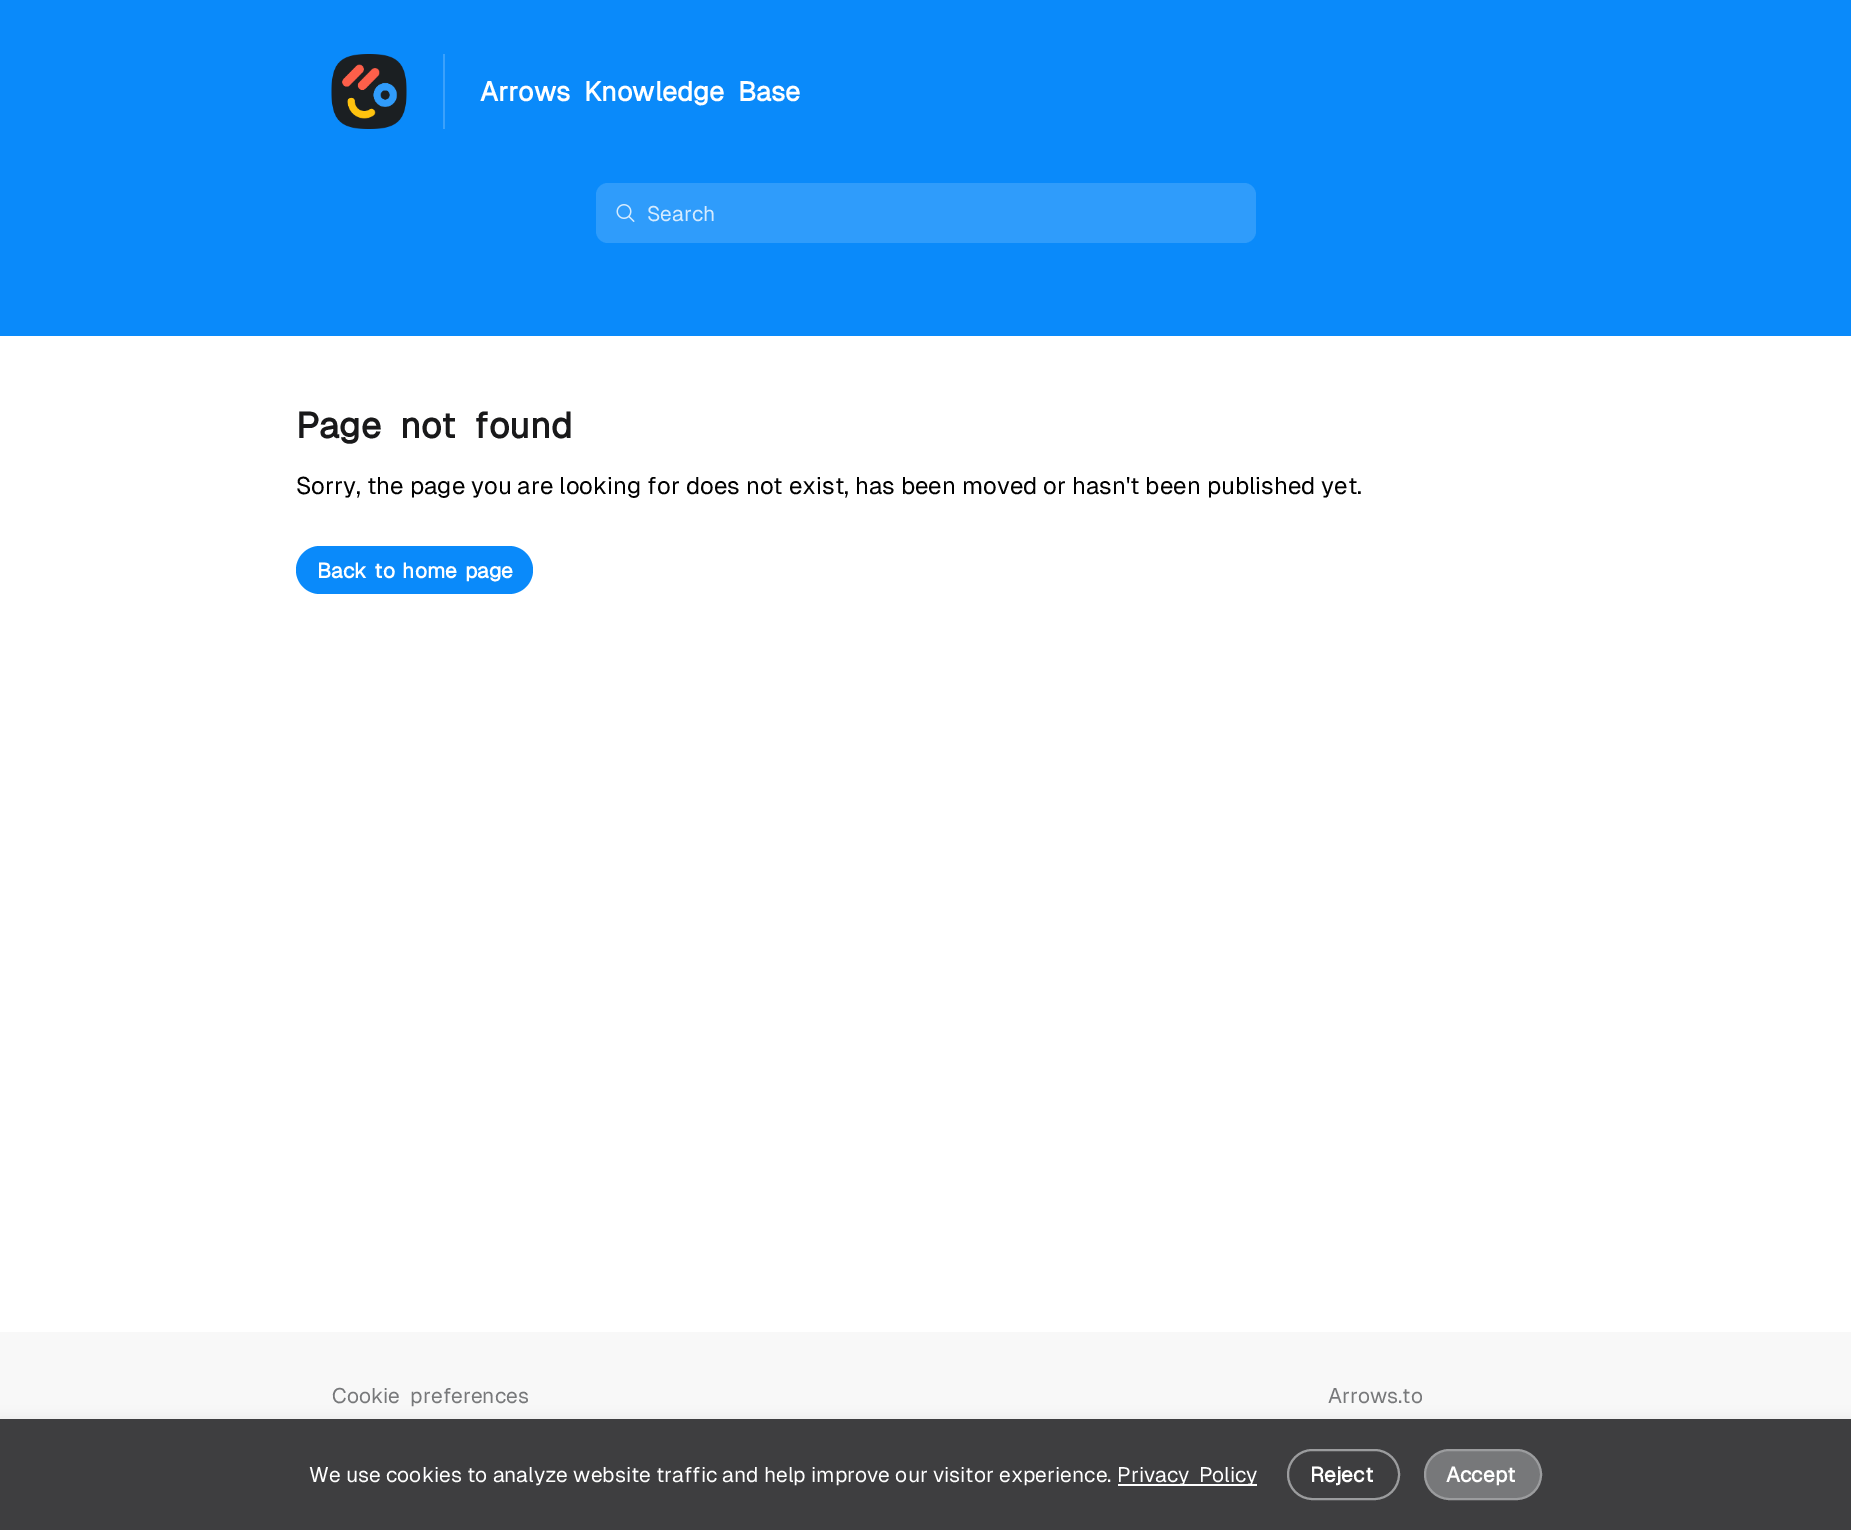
%!PS
<< /PageSize [1851 1530] /PageUsesTransparency true >> setpagedevice
/mt/moveto load def
/fl/fill load def
/st/stroke load def
/gs/gsave load def
/gr/grestore load def
/lw/setlinewidth load def
/co { dup -16 bitshift 255 div exch dup -8 bitshift 255 and 255 div exch 255 and 255 div setrgbcolor } def
/fn { [ exch dup neg 0 0 3 -1 roll 0 0 ] selectfont } def
/tx { co fn moveto show } def
/bx { co rectfill } def
/al { dup .setfillconstantalpha .setstrokeconstantalpha } def
/rr { 5 dict begin { /r /h /w /y /x } { exch def } forall
  x r add y moveto x w add y 2 copy h add r arct x w add y h add x 1 index r arct
  x y h add x y r arct x y 2 copy exch w add exch r arct closepath end } def
/sh { 12 dict begin { /a /b /q /h /w /y /x } { exch def } forall gsave /was 0 def
  9 -2 -9 { dup b mul 4 div /e exch def 1 sub .425 mul 2.718 exch exp 1 add a .99 .min exch div /now exch def
    1 1 now sub 1 was sub div sub al /was now def
    w h .min e 2 mul add 0 gt { x e sub y e sub w e 2 mul add h e 2 mul add
      q e add b .6 mul add w h .min 2 div e add .min 0 .max rr fill } if } for grestore end } def
/im { 5 dict begin { /h /w /y /x /name } { exch def } forall
  gsave x y translate w h scale
  w h 8 [w 0 0 h 0 0] name (r) file false 3 colorimage grestore end } def
0 .pushpdf14devicefilter
0 1530 translate 1 -1 scale
4 setmiterlimit
0 0 1851 1530 16#FFFFFF bx
0 0 1851 336 16#0A8AFA bx
(media/1.raw) 331 54 76 75 im
443 54 2 75 16#3BA1FB bx
16#2F9CFB co
596 183 660 60 12 rr fl
(media/2.raw) 616 204 19 18 im
16#0A8AFA co
296 546 237 48 24 rr fl
0 1332 1851 87 16#F8F8F8 bx
16#000000 co
0 1421 1851 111 0 7 .08 sh
0 1419 1851 111 16#3E3E40 bx
1118 1484 139 2 16#FFFFFF bx
16#9B9C9E co
2 lw
1288 1450 111 49 24.5 rr st
16#77787A co
1425 1450 116 49 24.5 rr gs fl gr
16#9B9C9E co
st
/Geist-Bold 27 fn
16#FFFFFF co
480 101 mt 7 0 32 (Arrows Knowledge Base) widthshow
(Search) 647 221 /Geist-Regular 21 16#D5EBFE tx
/Geist-Bold 36 fn
16#19191A co
296 438 mt 10 0 32 (Page not found) widthshow
(Sorry, the page you are looking for does not exist, has been moved or hasn't been published yet.) 296 494 /Geist-Regular 24 16#000000 tx
/Geist-Bold 21 fn
16#FFFFFF co
317 578 mt 2.5 0 32 (Back to home page) widthshow
/Geist-Regular 21 fn
16#77787A co
332 1403 mt 5 0 32 (Cookie preferences) widthshow
(Arrows.to) 1328 1403 /Geist-Regular 21 16#77787A tx
(We use cookies to analyze website traffic and help improve our visitor experience.) 309 1482 /Geist-Regular 21 16#FFFFFF tx
1117 1482 mt 4 0 32 (Privacy Policy) widthshow
(Reject) 1310 1482 /Geist-Bold 21 16#FFFFFF tx
(Accept) 1446 1482 /Geist-Bold 21 16#FFFFFF tx
.poppdf14devicefilter showpage
